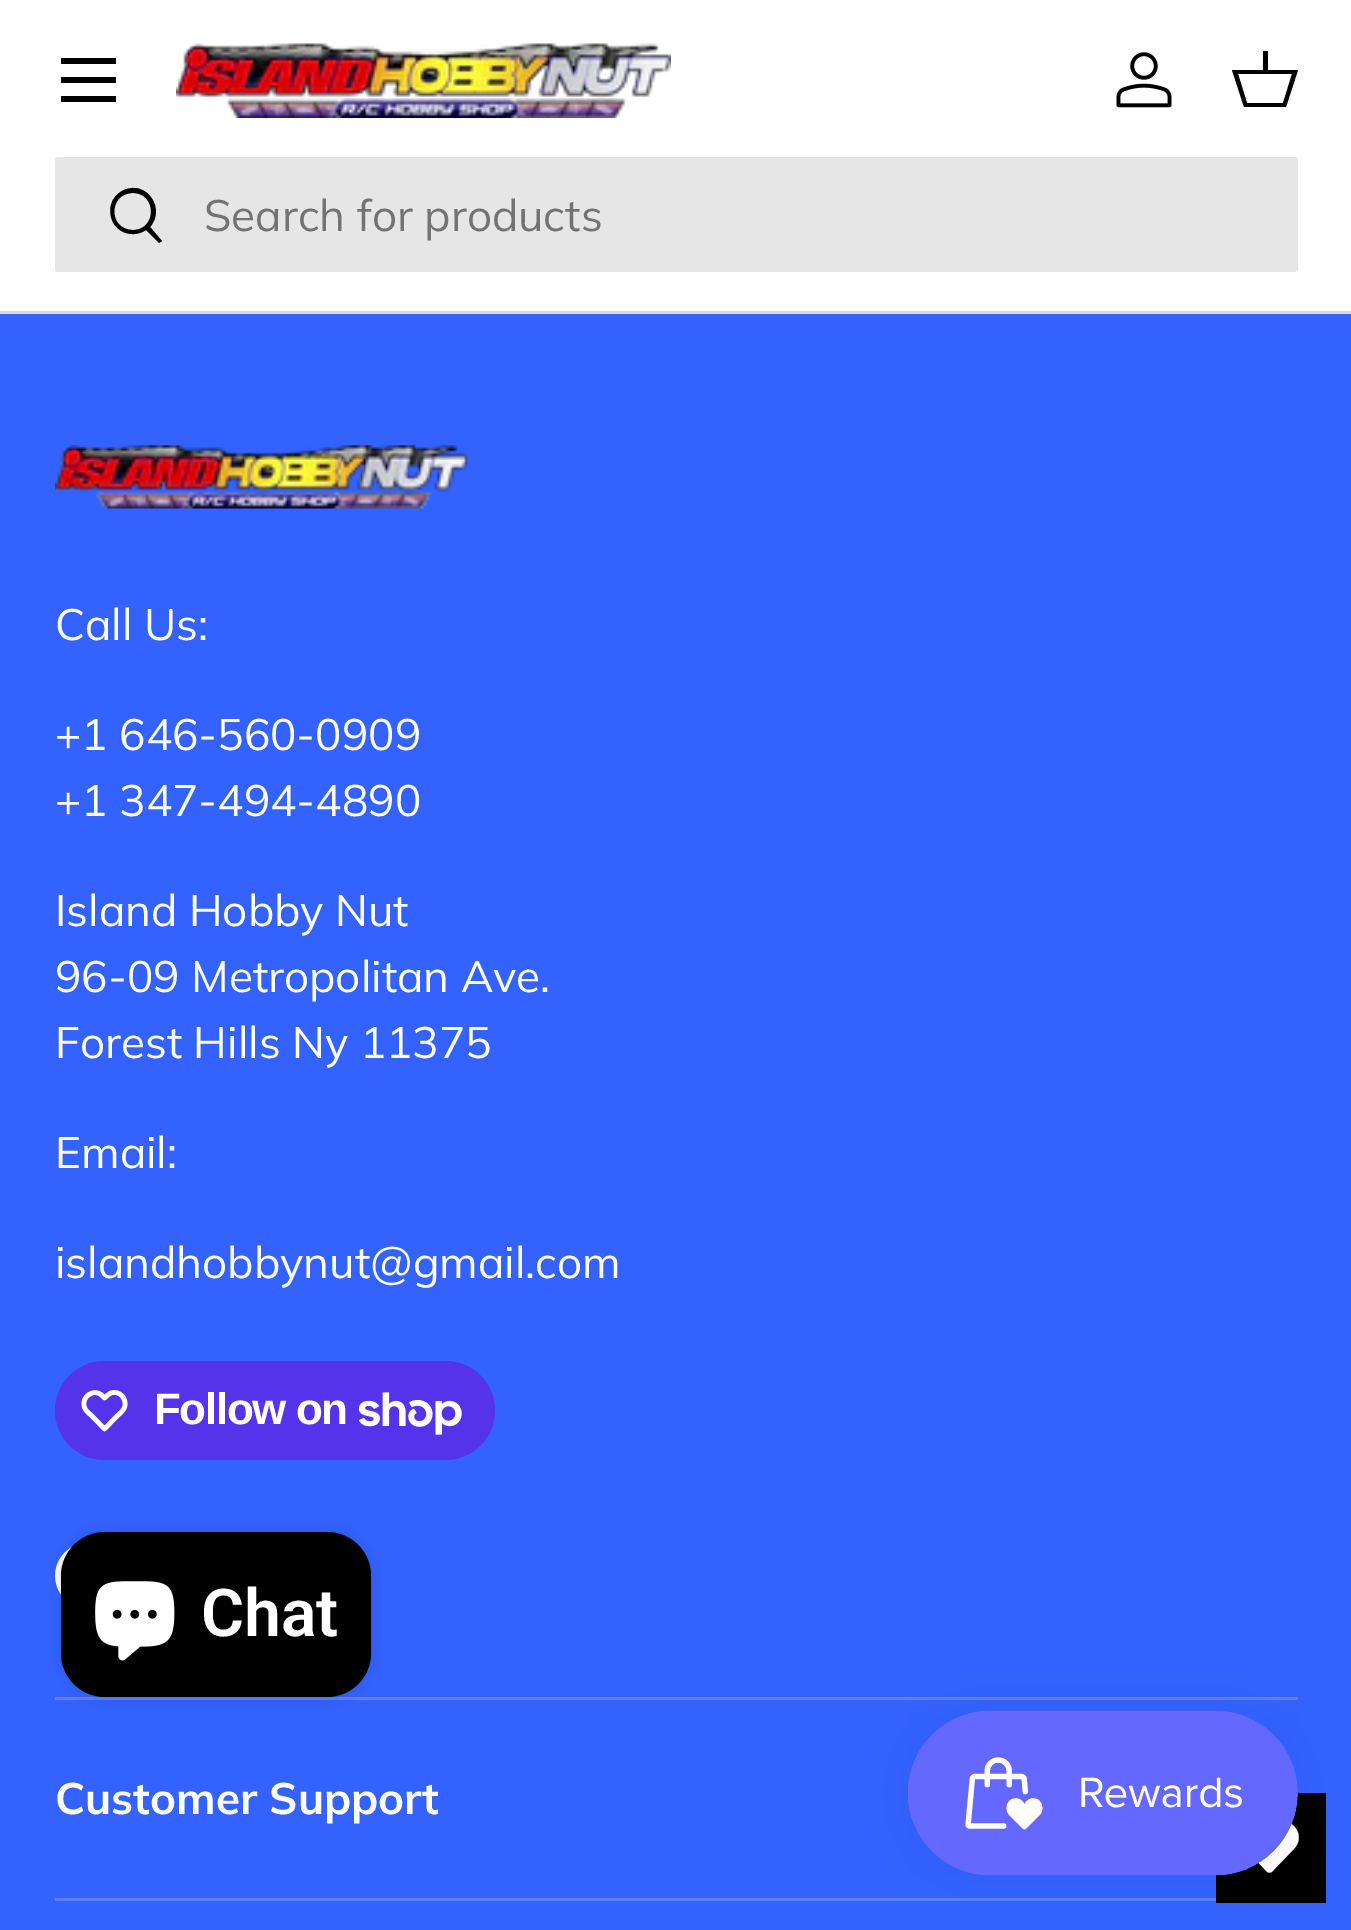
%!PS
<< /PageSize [1351 1930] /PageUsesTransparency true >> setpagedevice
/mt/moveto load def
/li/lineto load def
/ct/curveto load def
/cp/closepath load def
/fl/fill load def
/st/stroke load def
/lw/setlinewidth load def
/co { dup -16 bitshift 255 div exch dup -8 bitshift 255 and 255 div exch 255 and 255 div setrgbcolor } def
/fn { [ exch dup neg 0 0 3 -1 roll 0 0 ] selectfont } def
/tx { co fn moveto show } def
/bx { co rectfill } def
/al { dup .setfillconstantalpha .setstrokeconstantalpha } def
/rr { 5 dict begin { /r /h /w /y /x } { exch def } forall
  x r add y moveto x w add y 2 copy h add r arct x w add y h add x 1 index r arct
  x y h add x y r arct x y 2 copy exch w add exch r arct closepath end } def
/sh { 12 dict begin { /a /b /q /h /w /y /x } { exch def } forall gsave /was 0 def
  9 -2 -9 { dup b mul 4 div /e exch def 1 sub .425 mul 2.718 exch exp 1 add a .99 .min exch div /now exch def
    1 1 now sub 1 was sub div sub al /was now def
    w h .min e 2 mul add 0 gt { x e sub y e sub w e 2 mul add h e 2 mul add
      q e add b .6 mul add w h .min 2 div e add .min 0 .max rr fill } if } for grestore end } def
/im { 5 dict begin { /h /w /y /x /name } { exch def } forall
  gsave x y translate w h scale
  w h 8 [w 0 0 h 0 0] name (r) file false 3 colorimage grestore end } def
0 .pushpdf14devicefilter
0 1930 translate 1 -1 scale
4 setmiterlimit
0 0 1351 1930 16#3362FF bx
0 0 1351 311 16#FFFFFF bx
0 311 1351 3 16#D9D9D9 bx
61 58 55 6 16#000000 bx
61 96 55 6 16#000000 bx
61 77 55 6 16#000000 bx
(media/1.raw) 176 43 495 75 im
(media/2.raw) 1116 52 56 56 im
1263 70 mt 1263 51 li 1268 51 li 1268 70 li 1298 70 li 1286 107 li 1244 107 li 1232 70 li cp 1238 74 mt 1247 103 li 1283 103 li 1292 74 li cp fl
16#E6E6E6 co
55 157 1243 115 3 rr fl
16#000000 co
150 227 mt 162 241 li 159 243 li 146 230 li 136 237 121 235 114 224 ct 110 218 109 209 112 202 ct 114 197 119 192 124 190 ct 147 180 166 209 150 227 ct cp 133 230 mt 157 230 157 193 133 193 ct 108 193 108 230 133 230 ct cp fl
(media/3.raw) 55 445 413 64 im
16#5433EB co
55 1361 440 99 49.5 rr fl
16#FFFFFF co
4.6 lw
1 setlinejoin
102 1395.5 mt 104.5 1398 li 106.5 1396 108.5 1394 111 1393 ct 119.5 1390 127.5 1399 124.5 1407.5 ct 123 1411.5 119 1414 116 1417 ct 104.5 1429 li 93 1417 li 90 1414 86 1411.5 84.5 1407.5 ct 80.5 1397 94 1387.5 102 1395.5 ct cp st
(media/4.raw) 358 1392 104 43 im
(media/5.raw) 55 1546 18 49 im
55 1697 1243 3 16#5C81FF bx
55 1898 1161 3 16#5C81FF bx
16#000000 co
61 1532 310 165 44 7 .15 sh
61 1532 310 165 44 rr fl
(media/6.raw) 95 1581 80 80 im
1216 1793 110 110 16#000000 bx
16#FFFFFF co
1293 1825 mt 1285 1818 1276 1822 1270 1829 ct 1267 1826 li 1262 1821 1252 1820 1246 1825 ct 1239 1831 1238 1842 1245 1849 ct 1267 1872 li 1268 1873 1271 1873 1272 1872 ct 1294 1849 li 1301 1842 1300 1831 1293 1825 ct cp fl
16#000000 co
908 1711 390 165 82.5 34.5 .05 sh
(media/7.raw) 908 1711 390 165 im
(Search for products) 204 231 /Muli-Regular 44 16#737373 tx
(Call Us:) 55 640 /Muli-Regular 44 16#FFFFFF tx
(+1 646-560-0909) 55 750 /Muli-Regular 44 16#FFFFFF tx
(+1 347-494-4890) 55 816 /Muli-Regular 44 16#FFFFFF tx
(Island Hobby Nut) 55 926 /Muli-Regular 44 16#FFFFFF tx
(96-09 Metropolitan Ave.) 55 992 /Muli-Regular 44 16#FFFFFF tx
(Forest Hills Ny 11375) 55 1058 /Muli-Regular 44 16#FFFFFF tx
(Email:) 55 1168 /Muli-Regular 44 16#FFFFFF tx
(islandhobbynut@gmail.com) 55 1278 /Muli-Regular 44 16#FFFFFF tx
/LiberationSans-Bold 44 fn
154 1424 mt -1.4 0 (Follow on) ashow
(Customer Support) 55 1814 /Muli-Bold 44 16#FFFFFF tx
(Chat) 201 1636 /Roboto-SemiBold 66 16#FFFFFF tx
.poppdf14devicefilter showpage
